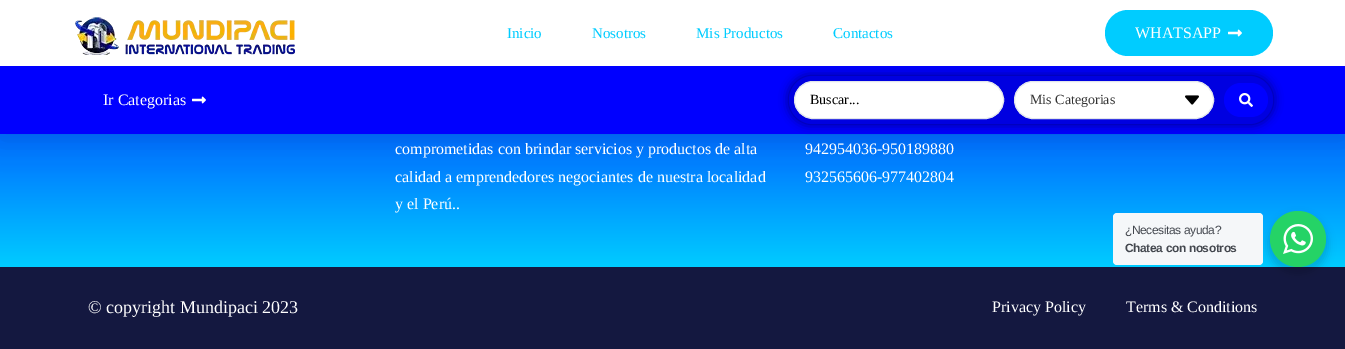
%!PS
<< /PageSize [1345 349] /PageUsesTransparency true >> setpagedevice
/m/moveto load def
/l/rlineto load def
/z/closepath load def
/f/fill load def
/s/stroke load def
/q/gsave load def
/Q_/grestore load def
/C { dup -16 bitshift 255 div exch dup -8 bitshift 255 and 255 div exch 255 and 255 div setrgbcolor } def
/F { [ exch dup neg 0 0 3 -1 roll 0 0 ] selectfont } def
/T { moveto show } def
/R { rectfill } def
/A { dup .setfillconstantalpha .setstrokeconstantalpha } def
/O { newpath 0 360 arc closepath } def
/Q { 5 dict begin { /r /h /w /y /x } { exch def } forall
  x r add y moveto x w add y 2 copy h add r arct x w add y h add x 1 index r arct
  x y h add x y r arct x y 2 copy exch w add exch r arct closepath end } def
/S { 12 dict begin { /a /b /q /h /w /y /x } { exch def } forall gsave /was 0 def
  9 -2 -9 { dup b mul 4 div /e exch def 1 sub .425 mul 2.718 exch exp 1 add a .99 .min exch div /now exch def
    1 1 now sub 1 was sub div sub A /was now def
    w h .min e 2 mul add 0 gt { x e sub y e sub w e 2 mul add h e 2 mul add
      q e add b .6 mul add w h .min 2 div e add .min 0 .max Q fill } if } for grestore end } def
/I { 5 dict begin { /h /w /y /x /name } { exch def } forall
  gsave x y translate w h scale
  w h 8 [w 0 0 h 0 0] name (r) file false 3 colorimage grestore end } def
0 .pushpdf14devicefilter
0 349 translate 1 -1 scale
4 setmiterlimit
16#FFFFFF C
0 0 1345 349 R
q 0 134 m 1345 0 l 0 133 l -1345 0 l z clip newpath
<< /ShadingType 2 /ColorSpace /DeviceRGB /Coords [673 -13 673 267] /Extend [true true] /Function << /FunctionType 2 /Domain [0 1] /C0 [0 0 1] /C1 [0 .8 1] /N 1 >> >> shfill Q_
16#000000 C
0 5 1345 134 0 15 .1 S
16#0000FF C
0 66 1345 68 R
16#000000 C
789 76 484 48 24 5 .5 S
16#FFFFFF C
0 0 1345 66 R
(1.rgb) 75 17 220 38 I
/LiberationSerif-Regular 15 F
16#00CCFF C
(Inicio) 507 38 T
(Nosotros) 592 38 T
(Mis Productos) 696 38 T
(Contactos) 833 38 T
1105 10 168 46 23 Q f
/LiberationSerif-Regular 16 F
16#FFFFFF C
(WHATSAPP) 1135 38 T
(2.rgb) 1228 29 14 8 I
(Ir Categorias) 103 105 T
(3.rgb) 192 96 14 8 I
16#0000E0 C
789 76 484 48 24 Q f
16#FFFFFF C
794.5 81.5 209 37 18.5 Q q f Q_
16#E1E5EB C
s
/LiberationSerif-Regular 14 F
16#000000 C
(Buscar...) 810 104 T
16#FFFFFF C
1014.5 81.5 199 37 18.5 Q q f Q_
16#E1E5EB C
s
16#333333 C
(Mis Categorias) 1030 104 T
(4.rgb) 1185 95 14 10 I
16#0000FF C
1224 83 44 34 17 Q f
(5.rgb) 1239 93 14 14 I
/LiberationSerif-Regular 16 F
16#FFFFFF C
(comprometidas con brindar servicios y productos de alta) 395 154 T
(calidad a emprendedores negociantes de nuestra localidad) 395 182 T
(y el Perú..) 395 209 T
(942954036-950189880) 805 154 T
(932565606-977402804) 805 182 T
16#141840 C
0 267 1345 82 R
/LiberationSerif-Regular 18 F
16#FFFFFF C
(© copyright Mundipaci 2023) 88 313 T
/LiberationSerif-Regular 16 F
(Privacy Policy) 992 312 T
(Terms & Conditions) 1126 312 T
16#000000 C
1268 215 60 60 30 4 .14 S
16#F5F7F9 C
1113 213 150 52 4 Q f
/LiberationSans-Regular 12 F
16#43474E C
1125 234 m -.4 0 (¿Necesitas ayuda?) ashow
/LiberationSans-Bold 12 F
1125 252 m -.4 0 (Chatea con nosotros) ashow
16#25D366 C
1298 239 28 O f
(6.rgb) 1283 224 30 30 I
.poppdf14devicefilter showpage
